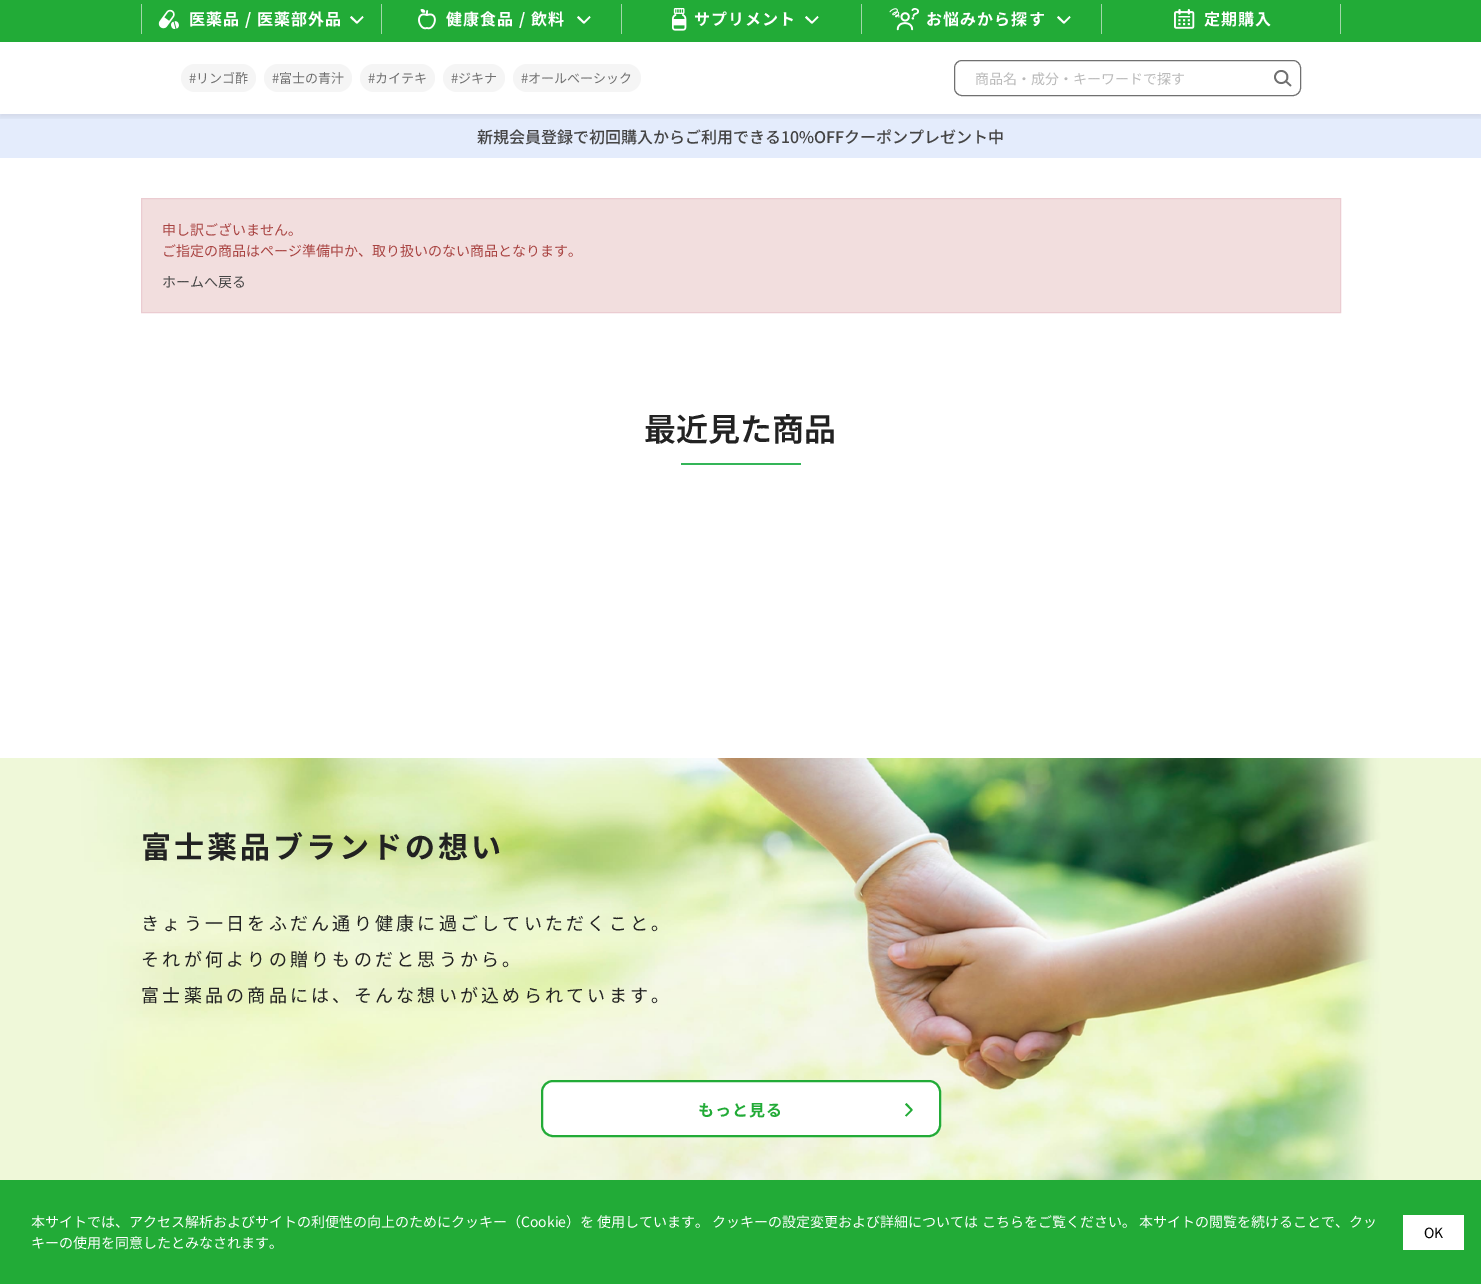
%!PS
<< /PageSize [1481 1284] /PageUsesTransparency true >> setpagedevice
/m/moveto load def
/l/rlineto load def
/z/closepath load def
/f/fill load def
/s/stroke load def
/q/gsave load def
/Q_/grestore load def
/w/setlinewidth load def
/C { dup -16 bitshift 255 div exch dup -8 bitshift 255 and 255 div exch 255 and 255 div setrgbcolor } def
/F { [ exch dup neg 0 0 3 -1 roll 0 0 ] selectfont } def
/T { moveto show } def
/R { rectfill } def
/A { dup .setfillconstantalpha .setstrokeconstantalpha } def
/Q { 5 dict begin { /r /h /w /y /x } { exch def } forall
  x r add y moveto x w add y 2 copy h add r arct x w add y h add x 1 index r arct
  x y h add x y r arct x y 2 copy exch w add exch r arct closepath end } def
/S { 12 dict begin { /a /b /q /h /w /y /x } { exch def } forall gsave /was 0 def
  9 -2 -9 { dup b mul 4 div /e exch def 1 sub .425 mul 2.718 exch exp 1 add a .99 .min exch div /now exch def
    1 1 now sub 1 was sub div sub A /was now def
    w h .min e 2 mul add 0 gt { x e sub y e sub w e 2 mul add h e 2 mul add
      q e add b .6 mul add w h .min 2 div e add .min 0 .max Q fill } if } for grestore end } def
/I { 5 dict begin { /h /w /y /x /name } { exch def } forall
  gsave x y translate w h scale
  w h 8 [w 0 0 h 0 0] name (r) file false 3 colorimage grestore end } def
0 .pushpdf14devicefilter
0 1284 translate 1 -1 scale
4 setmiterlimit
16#FFFFFF C
0 0 1481 1284 R
16#E4ECFC C
0 114 1481 44 R
q
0 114 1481 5 rectclip
16#000000 C
0 -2 1481 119 0 3 .08 S
Q_
16#22AB37 C
0 0 1481 42 R
16#A1D7A9 C
141 4 1 30 R
(1.rgb) 158 9 21 20 I
/NotoSansJP-Bold 16 F
16#FFFFFF C
189 25 m 1.1 0 (医薬品 / 医薬部外品) ashow
362.5 16 m 1 1.5 l -6 6 l -1.5 -1 l z f
351.5 16 m 6.5 6.5 l -1.5 1 l -6.5 -6 l z f
16#A1D7A9 C
381 4 1 30 R
(2.rgb) 418 9 18 21 I
16#FFFFFF C
446 25 m 1.1 0 (健康食品 / 飲料) ashow
589.5 16 m 1 1.5 l -6 6 l -1.5 -1 l z f
578.5 16 m 6.5 6.5 l -1.5 1 l -6.5 -6 l z f
16#A1D7A9 C
621 4 1 30 R
(3.rgb) 672 8 15 23 I
16#FFFFFF C
694 25 m 1.1 0 (サプリメント) ashow
817.5 16 m 1 1.5 l -6 6 l -1.5 -1 l z f
806.5 16 m 6.5 6.5 l -1.5 1 l -6.5 -6 l z f
16#A1D7A9 C
861 4 1 30 R
(4.rgb) 889 8 30 23 I
16#FFFFFF C
926 25 m 1.1 0 (お悩みから探す) ashow
1069.5 16 m 1 1.5 l -6 6 l -1.5 -1 l z f
1058.5 16 m 6.5 6.5 l -1.5 1 l -6.5 -6 l z f
16#A1D7A9 C
1101 4 1 30 R
(5.rgb) 1174 9 21 20 I
16#FFFFFF C
1204 25 m 1.1 0 (定期購入) ashow
16#A1D7A9 C
1340 4 1 30 R
16#F5F5F5 C
181 64 75 28 14 Q f
/NotoSansJP-Regular 13 F
16#707070 C
(#リンゴ酢) 189 83 T
16#F5F5F5 C
264 64 88 28 14 Q f
16#707070 C
(#富士の青汁) 272 83 T
16#F5F5F5 C
360 64 75 28 14 Q f
16#707070 C
(#カイテキ) 368 83 T
16#F5F5F5 C
443 64 62 28 14 Q f
16#707070 C
(#ジキナ) 451 83 T
16#F5F5F5 C
513 64 128 28 14 Q f
16#707070 C
(#オールベーシック) 521 83 T
954.5 60.5 346 35 7.5 Q s
/NotoSansJP-Regular 14 F
16#BABABA C
(商品名・成分・キーワードで探す) 975 84 T
(6.rgb) 1274 70 18 17 I
/NotoSansJP-Medium 16 F
16#444444 C
(新規会員登録で初回購入からご利用できる10%OFFクーポンプレゼント中) 477 143 T
16#F2DEDE C
141.5 198.5 m 1199 0 l 0 114 l -1199 0 l z q f Q_
16#EBCCD1 C
s
/NotoSansJP-Regular 14 F
16#A94442 C
(申し訳ございません。) 162 235 T
(ご指定の商品はページ準備中か、取り扱いのない商品となります。) 162 256 T
16#444444 C
(ホームへ戻る) 162 287 T
/NotoSansJP-SemiBold 32 F
16#222222 C
(最近見た商品) 644 441 T
16#34B558 C
681 463 120 2 R
(7.rgb) 0 758 1481 422 I
/NotoSansJP-Bold 30 F
16#222222 C
141 858 m 3 0 (富士薬品ブランドの想い) ashow
/NotoSansJP-Regular 18 F
141 930 m 3.25 0 (きょう一日をふだん通り健康に過ごしていただくこと。) ashow
141 966 m 3.25 0 (それが何よりの贈りものだと思うから。) ashow
141 1002 m 3.25 0 (富士薬品の商品には、そんな想いが込められています。) ashow
16#FFFFFF C
542 1081 398 55 11 Q q f Q_
16#22AB37 C
2 w
s
/NotoSansJP-Bold 16 F
698 1116 m 1.1 0 (もっと見る) ashow
905 1104.5 m 1.5 -1.5 l 6 6.5 l -1 1.5 l z f
905 1115.5 m 6.5 -6.5 l 1 1.5 l -6 6 l z f
0 1180 1481 104 R
/NotoSansJP-Regular 14 F
16#FFFFFF C
(本サイトでは、アクセス解析およびサイトの利便性の向上のためにクッキー（Cookie）を 使用しています。 クッキーの設定変更および詳細については こちらをご覧ください。 本サイトの閲覧を続けることで、クッ) 31 1227 T
(キーの使用を同意したとみなされます。) 31 1248 T
1403 1215 61 35 R
16#000000 C
(OK) 1424 1238 T
.poppdf14devicefilter showpage
